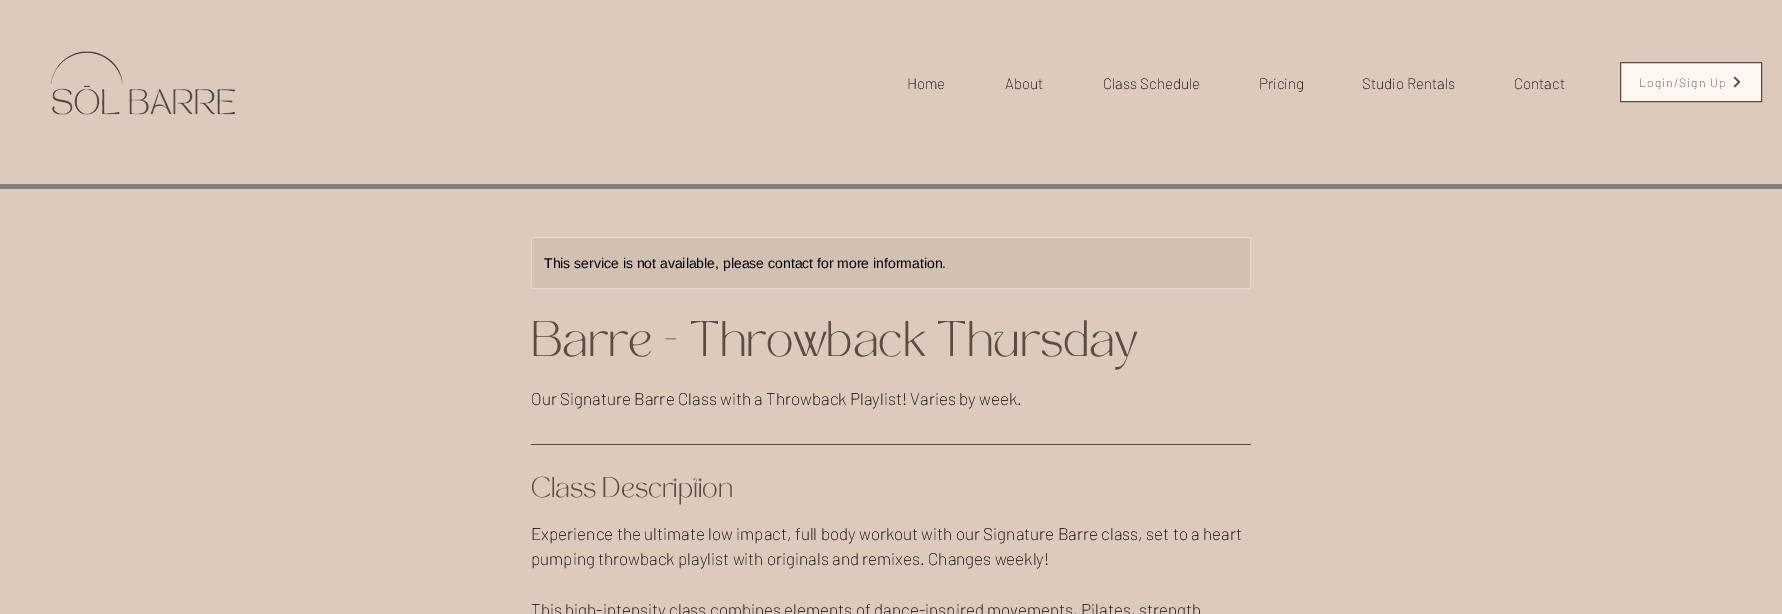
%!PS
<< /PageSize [1782 614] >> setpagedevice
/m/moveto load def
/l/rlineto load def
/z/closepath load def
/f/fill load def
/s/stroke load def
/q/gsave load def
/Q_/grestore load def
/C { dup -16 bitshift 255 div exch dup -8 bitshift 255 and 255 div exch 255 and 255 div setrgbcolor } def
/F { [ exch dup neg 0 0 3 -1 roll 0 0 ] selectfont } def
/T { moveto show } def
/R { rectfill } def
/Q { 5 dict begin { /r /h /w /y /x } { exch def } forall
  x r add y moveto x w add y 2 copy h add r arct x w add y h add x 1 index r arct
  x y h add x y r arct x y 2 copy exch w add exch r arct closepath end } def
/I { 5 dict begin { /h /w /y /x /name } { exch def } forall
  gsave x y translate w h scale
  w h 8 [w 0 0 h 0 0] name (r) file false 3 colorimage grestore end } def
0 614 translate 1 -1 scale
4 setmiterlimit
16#DDCABC C
0 0 1782 614 R
(1.rgb) 50 51 186 64 I
/Barlow-ExtraLight 15 F
16#000000 C
(Home) 907 89 T
(About) 1005 89 T
(Class Schedule) 1103 89 T
(Pricing) 1259 89 T
(Studio Rentals) 1362 89 T
(Contact) 1514 89 T
16#FFF8F1 C
1620.5 62.5 m 141 0 l 0 39 l -141 0 l z q f Q_
16#5B4D43 C
s
q
1639 75 88 14 rectclip
/Barlow-ExtraLight 12 F
1639 87 m 1.25 0 (Login/Sign Up) ashow
Q_
(2.rgb) 1733 76 8 12 I
16#808080 C
0 184 1782 5 R
16#D2C0B3 C
531.5 237.5 719 51 1.5 Q q f Q_
16#E4D9D1 C
s
/LiberationSans-Regular 14 F
16#000000 C
(This service is not available, please contact for more information.) 544 268 T
/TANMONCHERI-Regular 35 F
16#5B4D43 C
(Barre - Throwback Thursday) 531 356 T
/Barlow-ExtraLight 17 F
16#000000 C
(Our Signature Barre Class with a Throwback Playlist! Varies by week.) 531 405 T
16#5B4D43 C
531 444 720 1 R
/TANMONCHERI-Regular 20 F
(Class Description) 531 497 T
/Barlow-ExtraLight 17 F
16#000000 C
(Experience the ultimate low impact, full body workout with our Signature Barre class, set to a heart) 531 540 T
(pumping throwback playlist with originals and remixes. Changes weekly!) 531 565 T
(This high-intensity class combines elements of dance-inspired movements, Pilates, strength) 531 616 T
showpage
